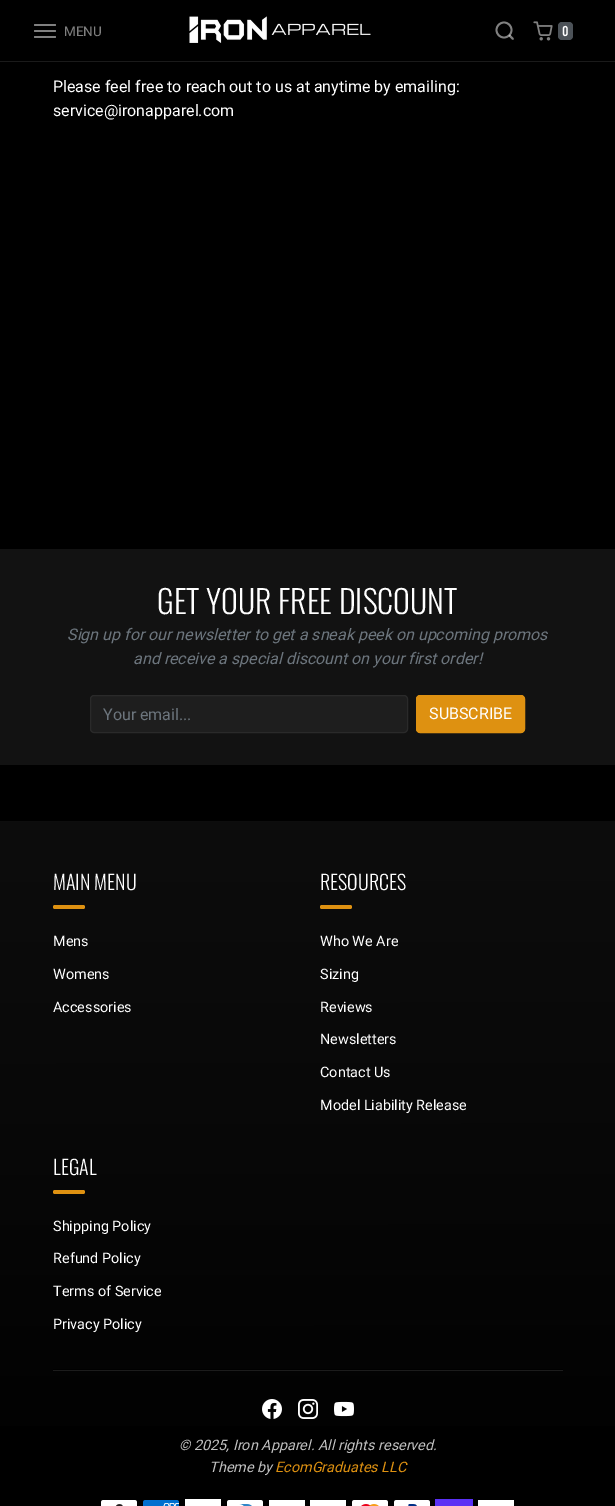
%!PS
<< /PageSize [615 1506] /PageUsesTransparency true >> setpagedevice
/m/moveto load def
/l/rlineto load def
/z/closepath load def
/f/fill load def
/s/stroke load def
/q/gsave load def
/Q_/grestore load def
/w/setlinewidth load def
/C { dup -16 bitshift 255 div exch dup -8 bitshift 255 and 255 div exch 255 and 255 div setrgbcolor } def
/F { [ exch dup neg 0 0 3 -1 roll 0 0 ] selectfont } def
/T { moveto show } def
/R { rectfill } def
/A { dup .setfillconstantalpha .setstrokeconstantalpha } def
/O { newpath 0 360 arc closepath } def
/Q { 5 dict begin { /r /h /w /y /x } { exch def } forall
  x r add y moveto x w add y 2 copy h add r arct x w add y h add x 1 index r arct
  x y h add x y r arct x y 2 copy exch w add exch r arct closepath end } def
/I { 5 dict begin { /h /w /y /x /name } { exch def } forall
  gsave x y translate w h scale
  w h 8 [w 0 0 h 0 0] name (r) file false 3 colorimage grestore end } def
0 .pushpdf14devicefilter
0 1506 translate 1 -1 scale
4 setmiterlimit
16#000000 C
0 0 615 1506 R
16#1A1A1A C
0 61 615 1 R
16#808080 C
34 24 22 2 1 Q f
34 30 22 2 1 Q f
34 36 22 2 1 Q f
/Roboto-Regular 13.5 F
(MENU) 64 36 T
(1.rgb) 189 16 182 27 I
1.8 w
504 30 7.5 O s
0.5 A
16#FFFFFF C
1 setlinecap
1 setlinejoin
513 39 m -3.5 -3.5 l s
1 A
(2.rgb) 533 21 20 20 I
16#4C5258 C
558 22 15 18 4 Q f
/Oswald-Bold 12 F
16#FFFFFF C
(0) 562 36 T
/Roboto-Regular 16 F
(Please feel free to reach out to us at anytime by emailing:) 53 92 T
(service@ironapparel.com) 53 116 T
16#121212 C
0 549 615 216 R
/Oswald-Light 32 F
16#FFFFFF C
(GET YOUR FREE DISCOUNT) 157 614 T
/Roboto-Italic 16 F
16#6C757D C
(Sign up for our newsletter to get a sneak peek on upcoming promos) 67 640 T
(and receive a special discount on your first order!) 133 664 T
16#1E1E1E C
90.5 695.5 317 37 3.5 Q q f Q_
16#2A2A2A C
1 w
0 setlinecap
0 setlinejoin
s
/Roboto-Regular 16 F
16#6C757D C
(Your email...) 103 720 T
16#DE9111 C
416.5 695.5 108 37 3.5 Q q f Q_
s
16#FFFFFF C
(SUBSCRIBE) 429 719 T
q 0 821 m 615 0 l 0 605 l -615 0 l z clip newpath
<< /ShadingType 2 /ColorSpace /DeviceRGB /Coords [307 821 308 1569] /Extend [true true] /Function << /FunctionType 2 /Domain [0 1] /C0 [.051 .051 .051] /C1 [0 0 0] /N 1 >> >> shfill Q_
/Oswald-Light 20 F
(MAIN MENU) 53 890 T
16#DE9111 C
53 905 32 4 2 Q f
/Roboto-Regular 14.4 F
16#FFFFFF C
(Mens) 53 946 T
(Womens) 53 979 T
(Accessories) 53 1012 T
/Oswald-Light 20 F
(RESOURCES) 320 890 T
16#DE9111 C
320 905 32 4 2 Q f
/Roboto-Regular 14.4 F
16#FFFFFF C
(Who We Are) 320 946 T
(Sizing) 320 979 T
(Reviews) 320 1012 T
(Newsletters) 320 1044 T
(Contact Us) 320 1077 T
(Model Liability Release) 320 1110 T
/Oswald-Light 20 F
(LEGAL) 53 1175 T
16#DE9111 C
53 1190 32 4 2 Q f
/Roboto-Regular 14.4 F
16#FFFFFF C
(Shipping Policy) 53 1231 T
(Refund Policy) 53 1263 T
(Terms of Service) 53 1296 T
(Privacy Policy) 53 1329 T
16#000000 C
53 1369 510 1 R
16#1C1C1C C
53 1370 510 1 R
(3.rgb) 262 1399 20 20 I
(4.rgb) 298 1399 20 20 I
(5.rgb) 334 1401 20 16 I
/Roboto-Italic 14.4 F
16#C0C0C0 C
(© 2025, Iron Apparel. All rights reserved.) 179 1450 T
(Theme by) 209 1472 T
16#DE9111 C
(EcomGraduates LLC) 275 1472 T
(6.rgb) 101 1500 36 6 I
(7.rgb) 143 1500 36 6 I
16#FFFFFF C
185 1499 36 7 R
(8.rgb) 227 1500 36 6 I
269 1500 36 6 R
310 1500 36 6 R
(9.rgb) 352 1500 36 6 I
(10.rgb) 394 1500 36 6 I
16#5A31F4 C
435 1499 38 7 R
16#FFFFFF C
478 1500 36 6 R
.poppdf14devicefilter showpage
